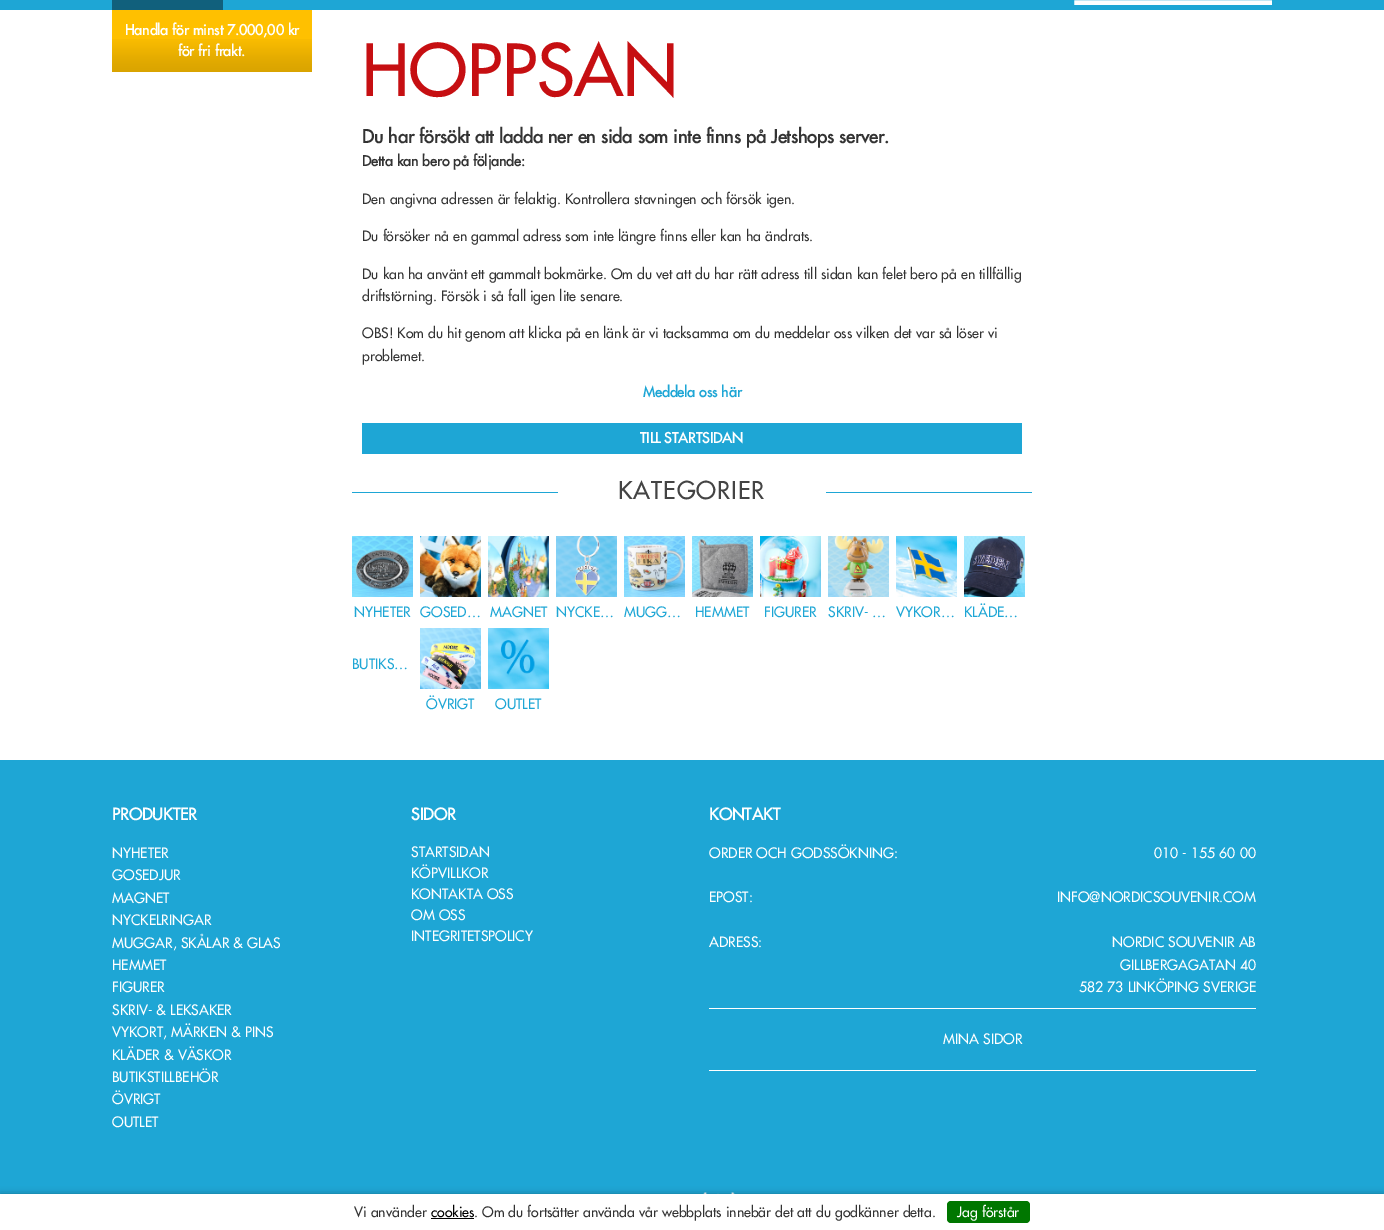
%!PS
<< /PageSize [1384 1230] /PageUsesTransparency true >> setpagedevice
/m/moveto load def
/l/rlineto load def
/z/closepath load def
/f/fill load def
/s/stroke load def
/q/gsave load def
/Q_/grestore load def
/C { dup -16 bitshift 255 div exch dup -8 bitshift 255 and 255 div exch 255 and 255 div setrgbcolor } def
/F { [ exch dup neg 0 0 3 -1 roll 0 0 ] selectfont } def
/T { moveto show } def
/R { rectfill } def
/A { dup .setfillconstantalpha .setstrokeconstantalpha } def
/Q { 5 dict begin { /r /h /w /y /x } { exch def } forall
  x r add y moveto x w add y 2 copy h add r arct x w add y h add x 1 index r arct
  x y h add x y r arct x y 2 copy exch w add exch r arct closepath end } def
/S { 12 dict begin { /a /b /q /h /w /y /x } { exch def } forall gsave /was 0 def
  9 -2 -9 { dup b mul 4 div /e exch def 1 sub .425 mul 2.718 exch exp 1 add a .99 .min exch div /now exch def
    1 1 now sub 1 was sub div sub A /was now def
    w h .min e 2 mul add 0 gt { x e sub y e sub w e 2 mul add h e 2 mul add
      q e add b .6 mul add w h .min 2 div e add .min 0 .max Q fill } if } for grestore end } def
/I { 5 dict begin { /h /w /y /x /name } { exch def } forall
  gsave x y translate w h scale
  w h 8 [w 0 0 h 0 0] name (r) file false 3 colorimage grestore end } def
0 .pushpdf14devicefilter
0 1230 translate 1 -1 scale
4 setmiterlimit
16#FFFFFF C
0 0 1384 1230 R
16#1EA6D5 C
0 0 1384 10 R
16#11607C C
112 0 111 10 R
16#FFFFFF C
1073.5 -.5 m 199 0 l 0 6 l -199 0 l z q f Q_
16#1EA6D5 C
s
16#FFC000 C
112 10 200 62 R
(1.rgb) 112 39 200 33 I
/Futura-Bold 14 F
16#FFFFFF C
(Handla för minst 7.000,00 kr) 125 35 T
(för fri frakt.) 178 56 T
/Futura-Regular 70 F
16#C60F12 C
(HOPPSAN) 362 96 T
/Futura-Bold 18 F
16#333333 C
(Du har försökt att ladda ner en sida som inte finns på Jetshops server.) 362 143 T
/Futura-Bold 14 F
(Detta kan bero på följande:) 362 166 T
/Futura-Regular 14 F
(Den angivna adressen är felaktig. Kontrollera stavningen och försök igen.) 362 204 T
(Du försöker nå en gammal adress som inte längre finns eller kan ha ändrats.) 362 241 T
(Du kan ha använt ett gammalt bokmärke. Om du vet att du har rätt adress till sidan kan felet bero på en tillfällig) 362 279 T
(driftstörning. Försök i så fall igen lite senare.) 362 301 T
(OBS! Kom du hit genom att klicka på en länk är vi tacksamma om du meddelar oss vilken det var så löser vi) 362 338 T
(problemet.) 362 361 T
/Futura-Bold 14 F
16#1EA6D5 C
(Meddela oss här) 643 397 T
362 423 660 31 R
16#FFFFFF C
(TILL STARTSIDAN) 640 443 T
16#1EA6D5 C
352 492 206 1 R
/Futura-Regular 24 F
16#444444 C
618 499 m 1 0 (KATEGORIER) ashow
16#1EA6D5 C
826 492 206 1 R
(2.rgb) 352 536 61 61 I
/Futura-Regular 14 F
(NYHETER) 354 617 T
(3.rgb) 420 536 61 61 I
(GOSED…) 420 617 T
(4.rgb) 488 536 61 61 I
(MAGNET) 490 617 T
(5.rgb) 556 536 61 61 I
(NYCKE…) 556 617 T
(6.rgb) 624 536 61 61 I
(MUGG…) 624 617 T
(7.rgb) 692 536 61 61 I
(HEMMET) 695 617 T
(8.rgb) 760 536 61 61 I
(FIGURER) 764 617 T
(9.rgb) 828 536 61 61 I
(SKRIV- …) 828 617 T
(10.rgb) 896 536 61 61 I
(VYKOR…) 896 617 T
(11.rgb) 964 536 61 61 I
(KLÄDE…) 964 617 T
(BUTIKS…) 352 669 T
(12.rgb) 420 628 61 61 I
(ÖVRIGT) 426 709 T
(13.rgb) 488 628 61 61 I
(OUTLET) 495 709 T
0 760 1384 434 R
(14.rgb) 703 1192 32 2 I
/Futura-Bold 16 F
16#FFFFFF C
(PRODUKTER) 112 820 T
/Futura-Regular 14 F
(NYHETER) 112 858 T
(GOSEDJUR) 112 880 T
(MAGNET) 112 903 T
(NYCKELRINGAR) 112 925 T
(MUGGAR, SKÅLAR & GLAS) 112 948 T
(HEMMET) 112 970 T
(FIGURER) 112 992 T
(SKRIV- & LEKSAKER) 112 1015 T
(VYKORT, MÄRKEN & PINS) 112 1037 T
(KLÄDER & VÄSKOR) 112 1060 T
(BUTIKSTILLBEHÖR) 112 1082 T
(ÖVRIGT) 112 1104 T
(OUTLET) 112 1127 T
/Futura-Bold 16 F
(SIDOR) 411 820 T
/Futura-Regular 14 F
(STARTSIDAN) 411 857 T
(KÖPVILLKOR) 411 878 T
(KONTAKTA OSS) 411 899 T
(OM OSS) 411 920 T
(INTEGRITETSPOLICY) 411 941 T
/Futura-Bold 16 F
(KONTAKT) 709 820 T
/Futura-Regular 14 F
(ORDER OCH GODSSÖKNING:) 709 858 T
(010 - 155 60 00) 1154 858 T
(EPOST:) 709 902 T
(INFO@NORDICSOUVENIR.COM) 1057 902 T
(ADRESS:) 709 947 T
(NORDIC SOUVENIR AB) 1112 947 T
(GILLBERGAGATAN 40) 1120 970 T
(582 73 LINKÖPING SVERIGE) 1079 992 T
709 1008 547 1 R
709 1070 547 1 R
(MINA SIDOR) 943 1044 T
16#000000 C
0 1194 1384 36 0 3.5 .3 S
16#FFFFFF C
0 1194 1384 36 R
16#333333 C
(Vi använder) 354 1217 T
16#000000 C
(cookies) 431 1217 T
431 1218 43 1 R
16#333333 C
(. Om du fortsätter använda vår webbplats innebär det att du godkänner detta.) 474 1217 T
16#007700 C
947 1201 83 22 4 Q f
16#FFFFFF C
(Jag förstår) 957 1217 T
.poppdf14devicefilter showpage
